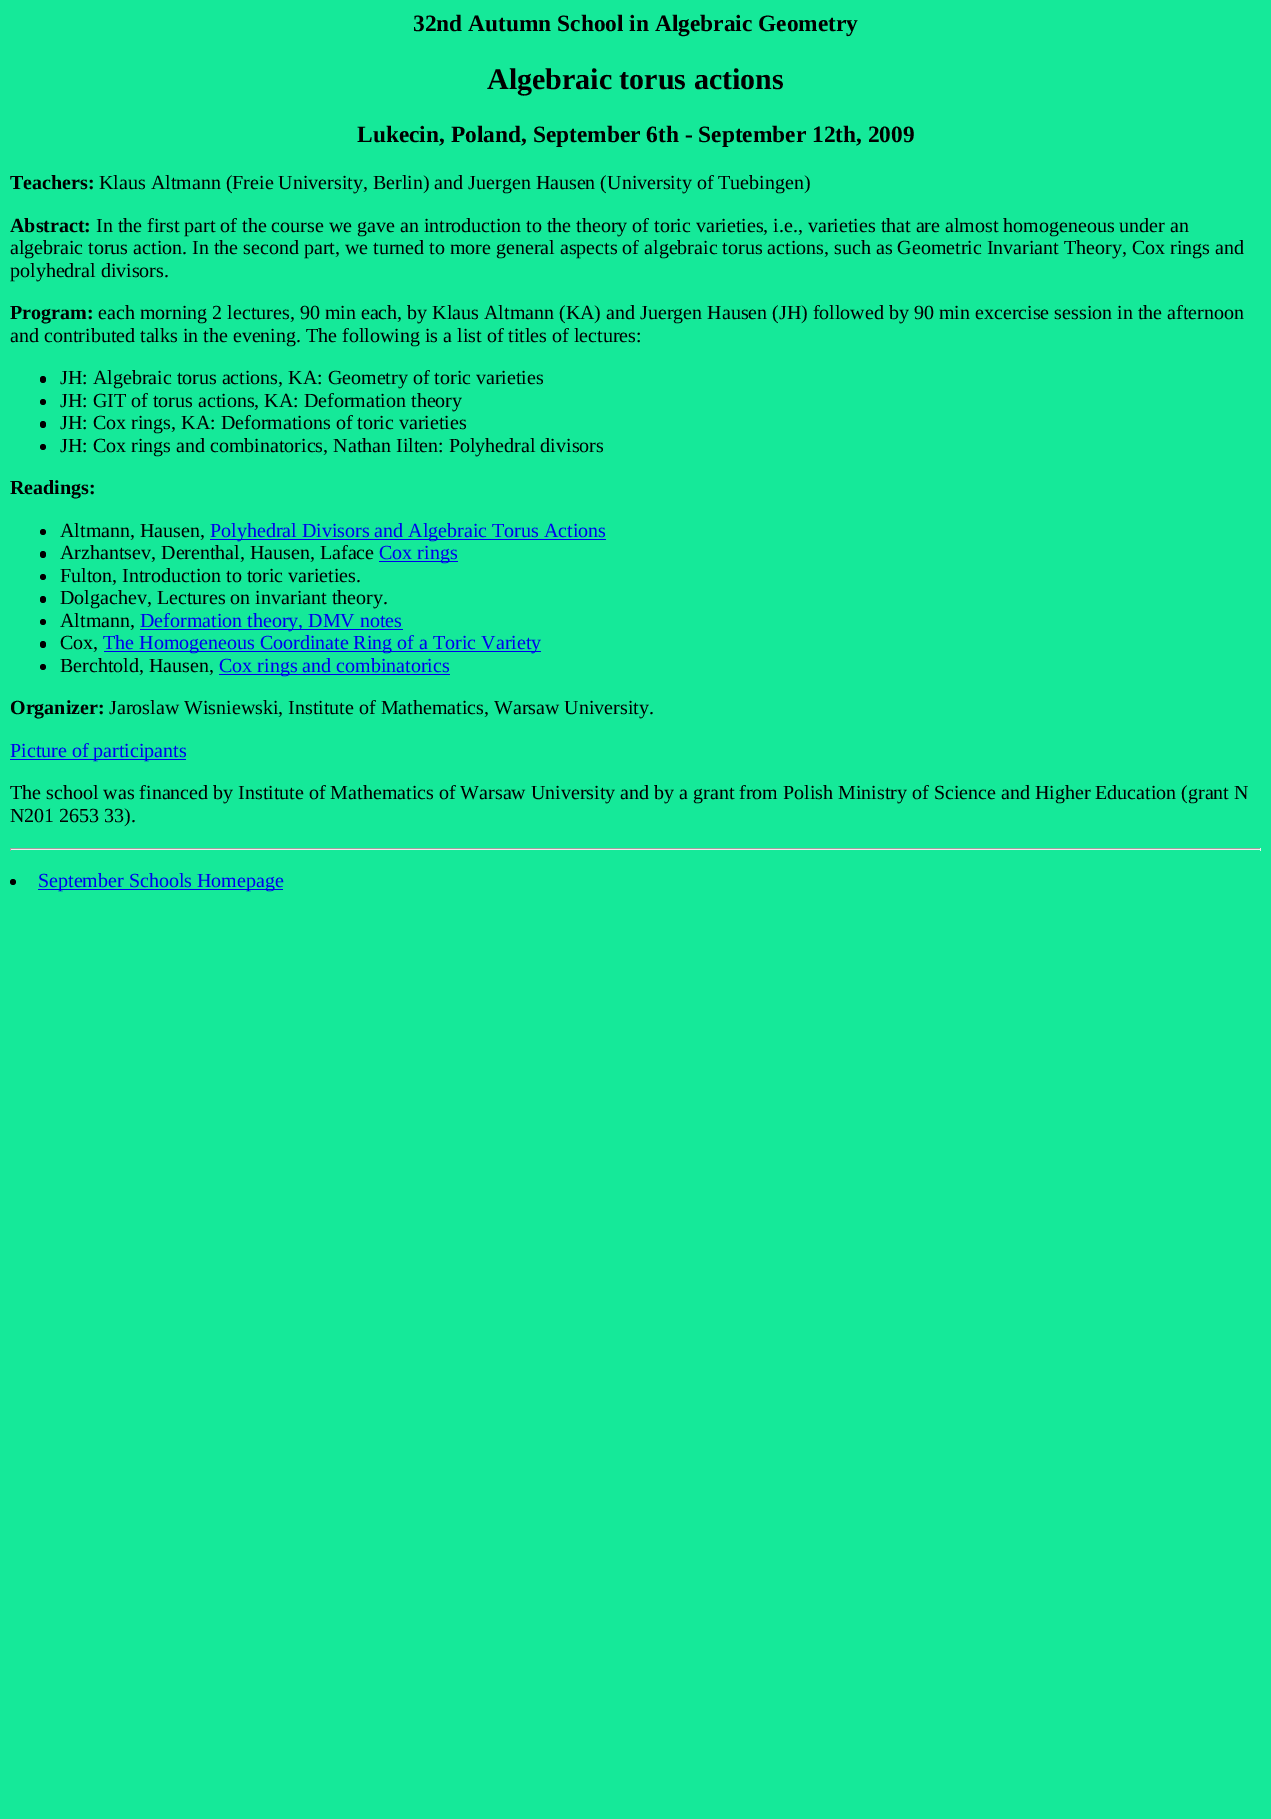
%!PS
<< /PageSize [1271 1819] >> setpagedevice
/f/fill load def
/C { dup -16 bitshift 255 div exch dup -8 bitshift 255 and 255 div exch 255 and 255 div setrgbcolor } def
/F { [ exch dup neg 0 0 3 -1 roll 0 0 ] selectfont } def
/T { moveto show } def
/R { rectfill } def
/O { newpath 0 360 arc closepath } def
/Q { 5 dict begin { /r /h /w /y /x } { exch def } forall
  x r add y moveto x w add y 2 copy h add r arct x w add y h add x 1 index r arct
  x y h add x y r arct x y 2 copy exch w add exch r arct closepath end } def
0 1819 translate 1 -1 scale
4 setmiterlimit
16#15E999 C
0 0 1271 1819 R
/LiberationSerif-Bold 23.4 F
16#000000 C
(32nd Autumn School in Algebraic Geometry) 413 31 T
/LiberationSerif-Bold 30 F
(Algebraic torus actions) 487 89 T
/LiberationSerif-Bold 23.4 F
(Lukecin, Poland, September 6th - September 12th, 2009) 357 142 T
/LiberationSerif-Bold 20 F
(Teachers:) 10 189 T
/LiberationSerif-Regular 20 F
(Klaus Altmann \(Freie University, Berlin\) and Juergen Hausen \(University of Tuebingen\)) 99 189 T
/LiberationSerif-Bold 20 F
(Abstract:) 10 232 T
/LiberationSerif-Regular 20 F
(In the first part of the course we gave an introduction to the theory of toric varieties, i.e., varieties that are almost homogeneous under an) 96 232 T
(algebraic torus action. In the second part, we turned to more general aspects of algebraic torus actions, such as Geometric Invariant Theory, Cox rings and) 10 254 T
(polyhedral divisors.) 10 277 T
/LiberationSerif-Bold 20 F
(Program:) 10 319 T
/LiberationSerif-Regular 20 F
(each morning 2 lectures, 90 min each, by Klaus Altmann \(KA\) and Juergen Hausen \(JH\) followed by 90 min excercise session in the afternoon) 98 319 T
(and contributed talks in the evening. The following is a list of titles of lectures:) 10 342 T
40 376 6 7 3 Q f
(JH: Algebraic torus actions, KA: Geometry of toric varieties) 60 384 T
43 402 3 O f
(JH: GIT of torus actions, KA: Deformation theory) 60 407 T
40 421 6 7 3 Q f
(JH: Cox rings, KA: Deformations of toric varieties) 60 429 T
43 447 3 O f
(JH: Cox rings and combinatorics, Nathan Iilten: Polyhedral divisors) 60 452 T
/LiberationSerif-Bold 20 F
(Readings:) 10 494 T
43 532 3 O f
/LiberationSerif-Regular 20 F
(Altmann, Hausen,) 60 537 T
16#0000EE C
210 539 396 1 R
(Polyhedral Divisors and Algebraic Torus Actions) 210 537 T
16#000000 C
40 551 6 7 3 Q f
(Arzhantsev, Derenthal, Hausen, Laface) 60 559 T
16#0000EE C
379 561 79 1 R
(Cox rings) 379 559 T
16#000000 C
43 577 3 O f
(Fulton, Introduction to toric varieties.) 60 582 T
40 596 6 7 3 Q f
(Dolgachev, Lectures on invariant theory.) 60 604 T
43 622 3 O f
(Altmann,) 60 627 T
16#0000EE C
140 629 263 1 R
(Deformation theory, DMV notes) 140 627 T
16#000000 C
40 641 6 7 3 Q f
(Cox,) 60 649 T
16#0000EE C
104 651 437 1 R
(The Homogeneous Coordinate Ring of a Toric Variety) 103 649 T
16#000000 C
43 667 3 O f
(Berchtold, Hausen,) 60 672 T
16#0000EE C
219 674 231 1 R
(Cox rings and combinatorics) 219 672 T
/LiberationSerif-Bold 20 F
16#000000 C
(Organizer:) 10 714 T
/LiberationSerif-Regular 20 F
(Jaroslaw Wisniewski, Institute of Mathematics, Warsaw University.) 109 714 T
16#0000EE C
10 759 176 1 R
(Picture of participants) 10 757 T
16#000000 C
(The school was financed by Institute of Mathematics of Warsaw University and by a grant from Polish Ministry of Science and Higher Education \(grant N) 10 799 T
(N201 2653 33\).) 10 822 T
16#9F9F9F C
10 848 1251 1 R
16#EEEEEE C
1260 848 1 3 R
10 849 1251 1 R
16#9F9F9F C
10 848 1 3 R
16#000000 C
13 882 3 O f
16#0000EE C
38 889 245 1 R
(September Schools Homepage) 38 887 T
showpage
